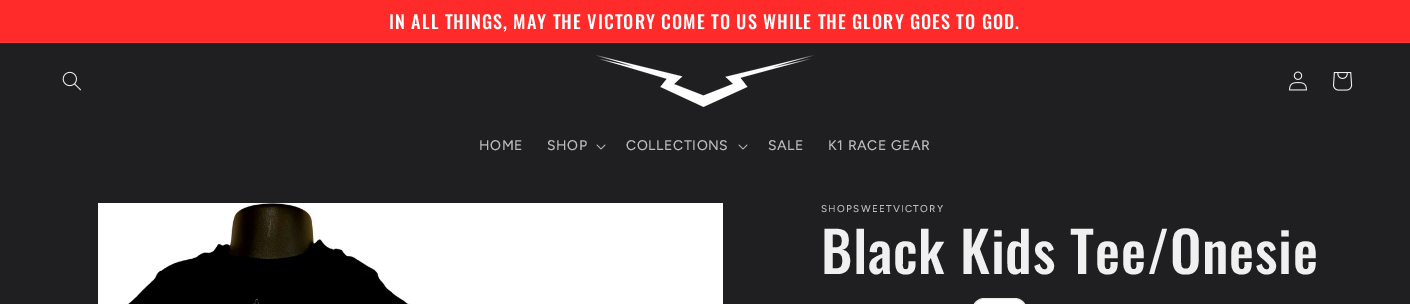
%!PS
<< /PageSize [1410 304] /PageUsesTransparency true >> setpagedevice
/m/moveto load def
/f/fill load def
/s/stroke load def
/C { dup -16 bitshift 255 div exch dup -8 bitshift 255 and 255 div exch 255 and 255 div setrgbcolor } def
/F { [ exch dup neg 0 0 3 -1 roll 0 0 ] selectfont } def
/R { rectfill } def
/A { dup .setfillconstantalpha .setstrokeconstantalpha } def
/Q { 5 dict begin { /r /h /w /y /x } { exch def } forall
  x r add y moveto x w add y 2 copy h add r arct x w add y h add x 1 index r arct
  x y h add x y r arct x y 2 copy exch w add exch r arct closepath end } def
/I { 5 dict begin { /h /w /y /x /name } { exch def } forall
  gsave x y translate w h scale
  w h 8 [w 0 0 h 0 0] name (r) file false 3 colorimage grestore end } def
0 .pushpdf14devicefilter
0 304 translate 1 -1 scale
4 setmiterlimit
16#1F1F21 C
0 0 1410 304 R
16#FF2B2B C
0 0 1410 42 R
16#FF3C3C C
0 42 1410 1 R
/Oswald-Medium 18.2 F
16#FFFFFF C
389 29 m 1 0 (IN ALL THINGS, MAY THE VICTORY COME TO US WHILE THE GLORY GOES TO GOD.) ashow
(1.rgb) 62 71 19 20 I
(2.rgb) 596 55 218 52 I
(3.rgb) 1289 71 18 20 I
(4.rgb) 1333 72 20 19 I
/Figtree-Medium 14 F
16#BCBCBC C
479 150 m .6 0 (HOME) ashow
547 150 m .6 0 (SHOP) ashow
(5.rgb) 596 144 10 6 I
626 150 m .6 0 (COLLECTIONS) ashow
(5.rgb) 738 144 10 6 I
768 150 m .6 0 (SALE) ashow
828 150 m .6 0 (K1 RACE GEAR) ashow
(6.rgb) 98 203 625 101 I
/Figtree-Medium 10 F
821 212 m 1.25 0 (SHOPSWEETVICTORY) ashow
/Oswald-Medium 56 F
16#F0F0F0 C
821 274 m .8 0 (Black Kids Tee/Onesie) ashow
16#FFFFFF C
972 298 55 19 12.5 Q f
0.1 A
16#1F1F21 C
972.5 298.5 54 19 12 Q s
.poppdf14devicefilter showpage
